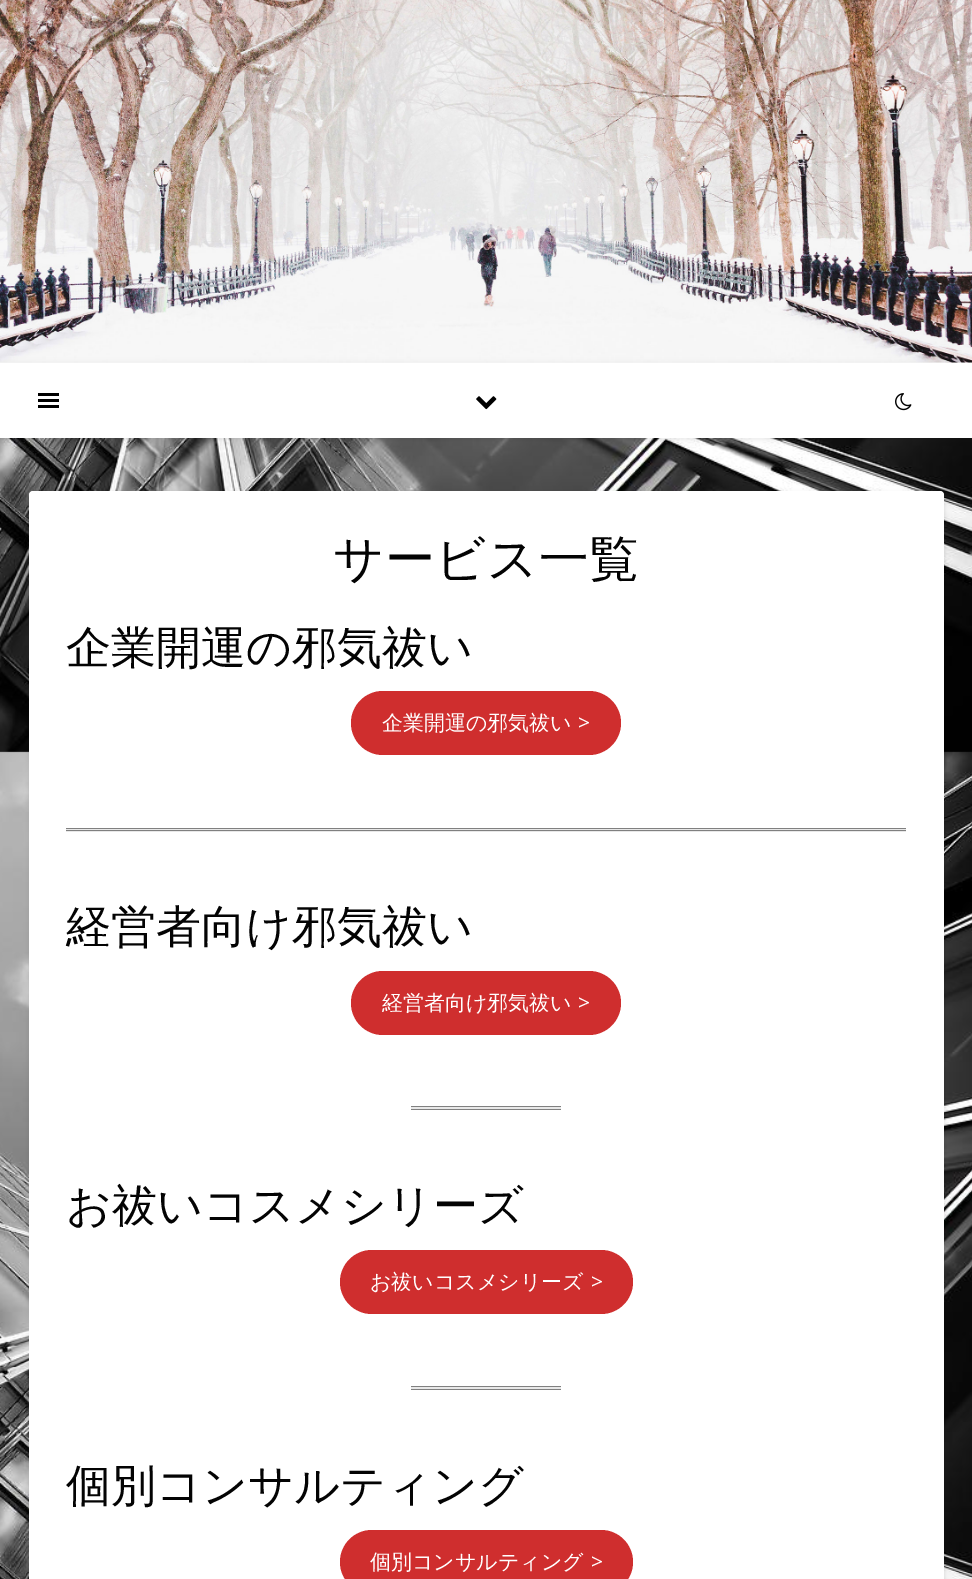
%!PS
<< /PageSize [972 1579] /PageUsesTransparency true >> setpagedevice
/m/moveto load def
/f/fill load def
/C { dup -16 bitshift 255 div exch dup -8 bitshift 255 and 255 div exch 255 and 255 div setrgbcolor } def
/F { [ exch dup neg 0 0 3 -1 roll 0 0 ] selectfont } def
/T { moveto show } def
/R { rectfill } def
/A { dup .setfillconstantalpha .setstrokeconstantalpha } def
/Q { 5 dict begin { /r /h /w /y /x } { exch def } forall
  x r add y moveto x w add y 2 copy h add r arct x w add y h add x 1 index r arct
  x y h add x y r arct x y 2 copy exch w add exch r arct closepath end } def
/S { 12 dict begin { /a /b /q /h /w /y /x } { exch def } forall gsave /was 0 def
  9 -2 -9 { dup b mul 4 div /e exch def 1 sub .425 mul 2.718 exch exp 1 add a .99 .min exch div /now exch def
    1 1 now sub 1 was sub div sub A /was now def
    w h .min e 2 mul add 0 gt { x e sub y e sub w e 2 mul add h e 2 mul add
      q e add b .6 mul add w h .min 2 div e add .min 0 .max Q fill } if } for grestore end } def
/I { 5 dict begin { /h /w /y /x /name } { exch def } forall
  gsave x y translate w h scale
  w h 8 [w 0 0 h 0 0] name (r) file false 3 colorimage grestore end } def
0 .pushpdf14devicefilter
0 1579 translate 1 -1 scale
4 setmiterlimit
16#FFFFFF C
0 0 972 1579 R
(1.rgb) 0 438 972 1141 I
(2.rgb) 0 0 972 363 I
16#000000 C
0 364 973 75 0 3 .1 S
16#FFFFFF C
0 363 972 75 R
16#000000 C
38 393 21 3 R
38 399 21 3 R
38 405 21 3 R
(3.rgb) 476 396 21 14 I
(4.rgb) 895 393 17 18 I
30 493 915 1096 4 2 .1 S
16#FFFFFF C
29 491 915 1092 4 Q f
/WenQuanYiZenHei-Medium 50 F
16#030303 C
333 576 m .5 0 (サービス一覧) ashow
/WenQuanYiZenHei-Medium 45 F
(企業開運の邪気祓い) 66 663 T
16#CF2E2E C
351 691 270 64 32 Q f
/WenQuanYiZenHei-Medium 21 F
16#FFFFFF C
(企業開運の邪気祓い) 382 730 T
/OpenSans-Regular 21 F
(>) 578 730 T
16#E8E8E8 C
66 829 840 3 R
16#808080 C
66 828 840 1 R
66 830 840 1 R
/WenQuanYiZenHei-Medium 45 F
16#030303 C
(経営者向け邪気祓い) 66 942 T
16#CF2E2E C
351 971 270 64 32 Q f
/WenQuanYiZenHei-Medium 21 F
16#FFFFFF C
(経営者向け邪気祓い) 382 1010 T
/OpenSans-Regular 21 F
(>) 578 1010 T
16#E8E8E8 C
411 1107 150 2 R
16#808080 C
411 1106 150 1 R
411 1109 150 1 R
/WenQuanYiZenHei-Medium 45 F
16#030303 C
(お祓いコスメシリーズ) 66 1221 T
16#CF2E2E C
340 1250 293 64 32 Q f
/WenQuanYiZenHei-Medium 21 F
16#FFFFFF C
(お祓いコスメシリーズ) 370 1289 T
/OpenSans-Regular 21 F
(>) 591 1289 T
16#E8E8E8 C
411 1387 150 2 R
16#808080 C
411 1386 150 1 R
411 1389 150 1 R
/WenQuanYiZenHei-Medium 45 F
16#030303 C
(個別コンサルティング) 66 1501 T
16#CF2E2E C
340 1530 293 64 32 Q f
/WenQuanYiZenHei-Medium 21 F
16#FFFFFF C
(個別コンサルティング) 370 1569 T
/OpenSans-Regular 21 F
(>) 591 1569 T
.poppdf14devicefilter showpage
